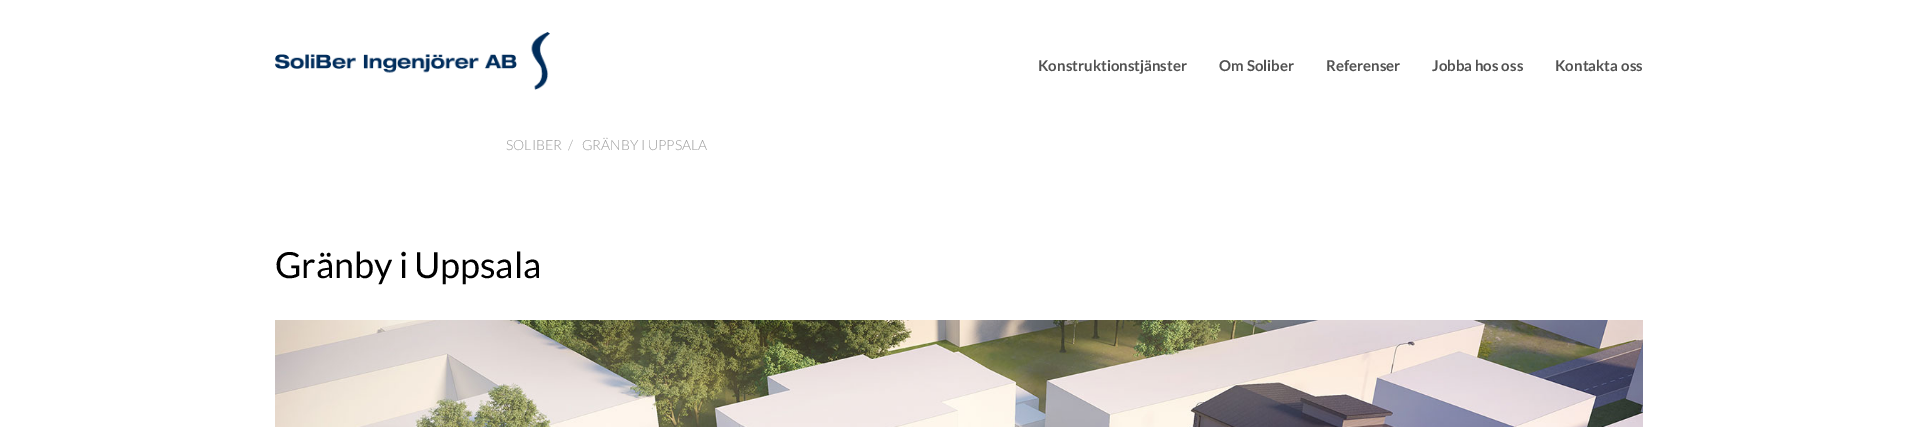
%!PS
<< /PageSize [1918 427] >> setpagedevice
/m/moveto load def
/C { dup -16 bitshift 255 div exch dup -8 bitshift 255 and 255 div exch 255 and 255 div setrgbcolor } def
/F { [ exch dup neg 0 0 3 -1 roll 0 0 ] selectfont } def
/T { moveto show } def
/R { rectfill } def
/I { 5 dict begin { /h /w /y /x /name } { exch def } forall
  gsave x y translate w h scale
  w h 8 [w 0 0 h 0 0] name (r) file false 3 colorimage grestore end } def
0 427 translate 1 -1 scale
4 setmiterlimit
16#FFFFFF C
0 0 1918 427 R
(1.rgb) 275 32 275 58 I
/Lato-Bold 15 F
16#525252 C
(Konstruktionstjänster) 1038 71 T
(Om Soliber) 1219 71 T
(Referenser) 1326 71 T
(Jobba hos oss) 1432 71 T
(Kontakta oss) 1555 71 T
/Lato-Light 14 F
16#9C9C9C C
(SOLIBER) 506 150 T
(/) 568 150 T
(GRÄNBY I UPPSALA) 582 150 T
/Lato-Regular 36 F
16#000000 C
275 278 m -1 0 32 (Gränby i Uppsala) widthshow
(2.rgb) 275 320 1368 107 I
showpage
